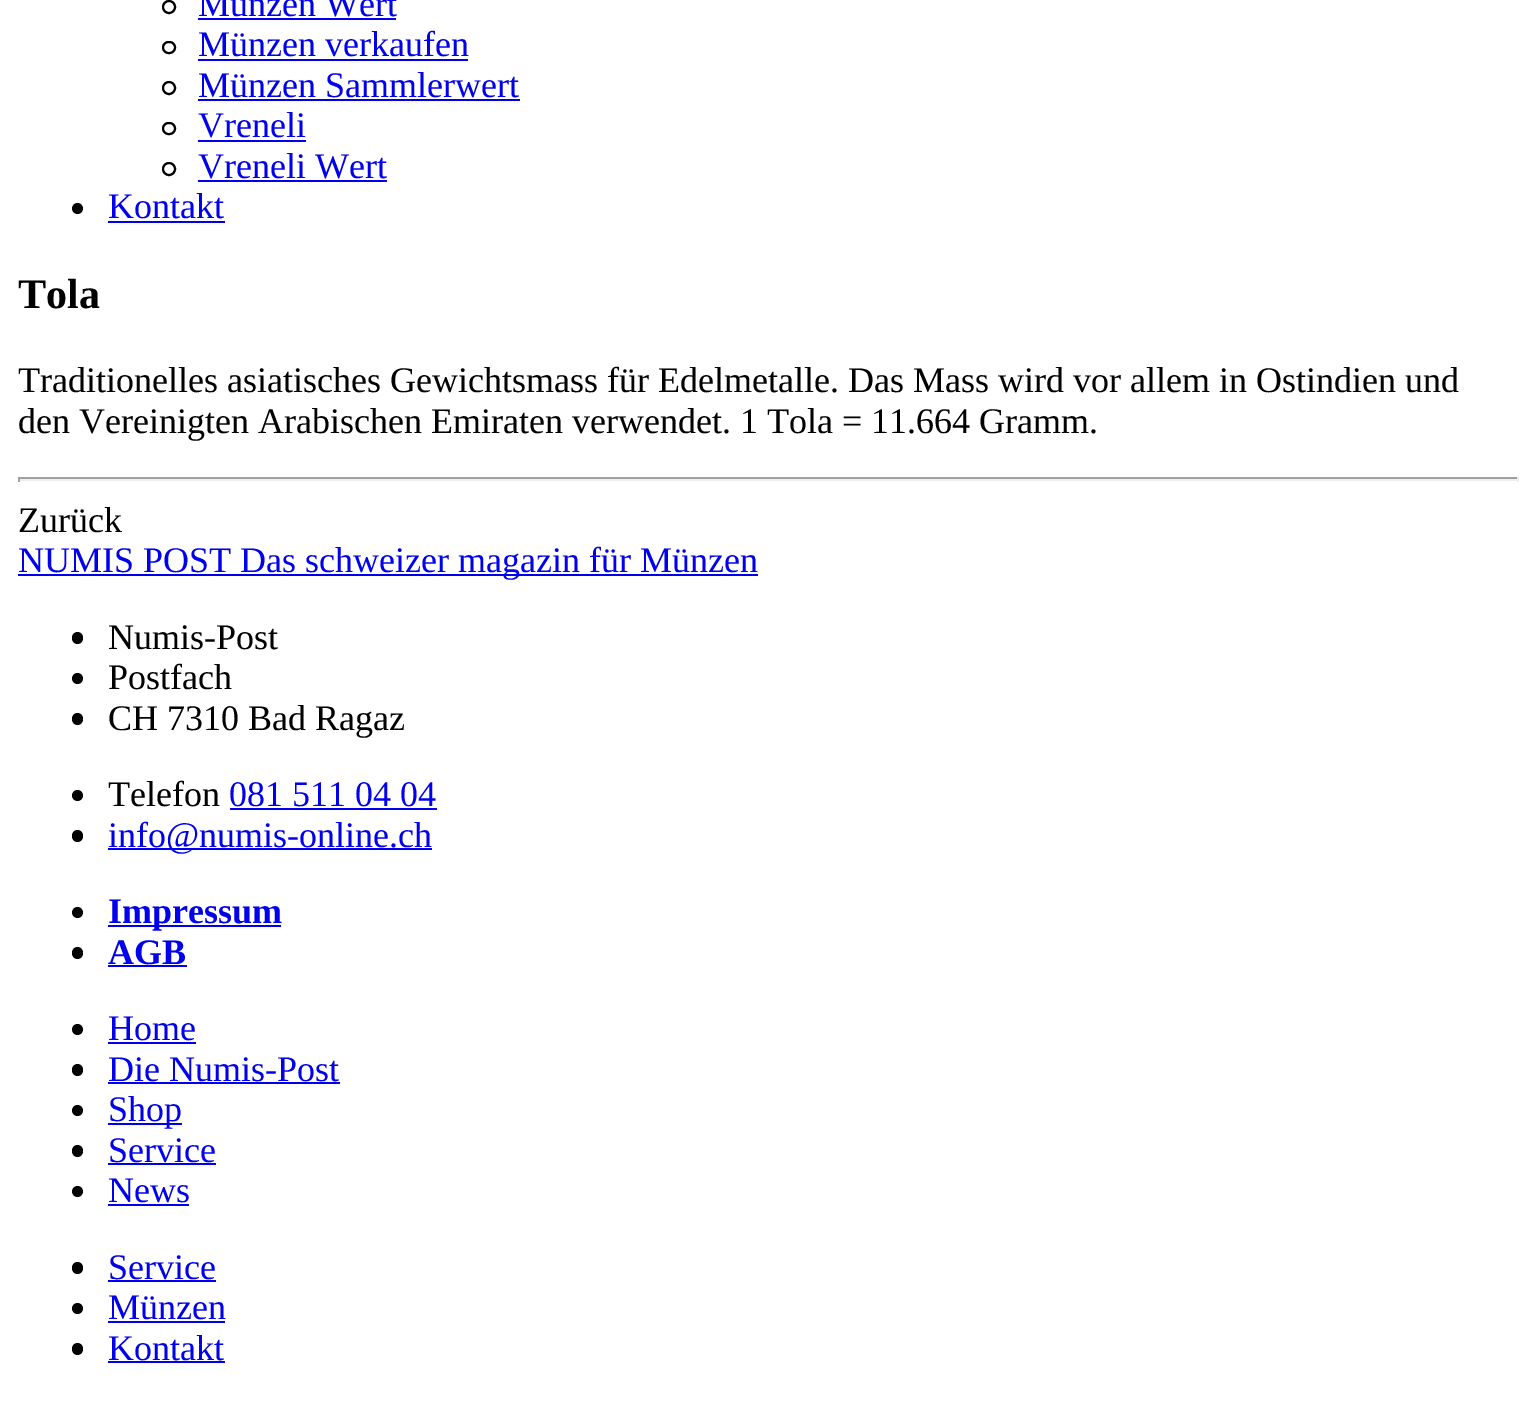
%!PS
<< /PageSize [1536 1403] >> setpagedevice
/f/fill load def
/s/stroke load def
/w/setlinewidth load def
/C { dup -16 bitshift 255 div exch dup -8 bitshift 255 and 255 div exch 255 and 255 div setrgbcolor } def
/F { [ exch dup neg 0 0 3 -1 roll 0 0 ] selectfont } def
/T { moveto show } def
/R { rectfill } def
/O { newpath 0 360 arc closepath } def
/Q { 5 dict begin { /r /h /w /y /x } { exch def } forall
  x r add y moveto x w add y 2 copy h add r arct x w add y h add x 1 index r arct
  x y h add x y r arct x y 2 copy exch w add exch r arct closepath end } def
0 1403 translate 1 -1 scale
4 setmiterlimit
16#FFFFFF C
0 0 1536 1403 R
16#000000 C
2 w
169 7 6 O s
/LiberationSerif-Regular 36 F
16#0000EE C
(Münzen Wert) 198 16 T
198 18 198 2 R
16#000000 C
163 42 12 11 5.5 Q s
16#0000EE C
(Münzen verkaufen) 198 56 T
198 59 270 2 R
16#000000 C
169 88 6 O s
16#0000EE C
(Münzen Sammlerwert) 198 97 T
198 99 322 2 R
16#000000 C
163 123 12 11 5.5 Q s
16#0000EE C
(Vreneli) 198 137 T
198 140 108 2 R
16#000000 C
169 169 6 O s
16#0000EE C
(Vreneli Wert) 198 178 T
198 180 189 2 R
16#000000 C
77.5 208.5 5.5 O f
16#0000EE C
(Kontakt) 108 218 T
108 221 117 2 R
/LiberationSerif-Bold 42 F
16#000000 C
(Tola) 18 308 T
/LiberationSerif-Regular 36 F
(Traditionelles asiatisches Gewichtsmass für Edelmetalle. Das Mass wird vor allem in Ostindien und) 18 392 T
(den Vereinigten Arabischen Emiraten verwendet. 1 Tola = 11.664 Gramm.) 18 433 T
16#9F9F9F C
18 477 1501 2 R
16#EEEEEE C
1517 477 2 5 R
18 479 1501 2 R
16#9F9F9F C
18 477 2 5 R
16#000000 C
(Zurück) 18 532 T
16#0000EE C
18 574 740 2 R
(NUMIS POST Das schweizer magazin für Münzen) 18 572 T
16#000000 C
72 632 11 12 5.5 Q f
(Numis-Post) 108 649 T
77.5 678.5 5.5 O f
(Postfach) 108 689 T
72 713 11 12 5.5 Q f
(CH 7310 Bad Ragaz) 108 730 T
77.5 795.5 5.5 O f
(Telefon) 108 806 T
16#0000EE C
(081 511 04 04) 229 806 T
230 808 207 2 R
16#000000 C
72 830 11 12 5.5 Q f
16#0000EE C
108 848 324 2 R
(info@numis-online.ch) 108 847 T
16#000000 C
77.5 912.5 5.5 O f
16#0000EE C
108 925 173 2 R
/LiberationSerif-Bold 36 F
(Impressum) 108 923 T
16#000000 C
72 947 11 12 5.5 Q f
16#0000EE C
(AGB) 108 964 T
108 965 79 2 R
16#000000 C
77.5 1029.5 5.5 O f
/LiberationSerif-Regular 36 F
16#0000EE C
(Home) 108 1040 T
108 1042 88 2 R
16#000000 C
72 1064 11 12 5.5 Q f
16#0000EE C
(Die Numis-Post) 108 1081 T
108 1082 232 2 R
16#000000 C
77.5 1110.5 5.5 O f
16#0000EE C
108 1123 74 2 R
(Shop) 108 1121 T
16#000000 C
72 1145 11 12 5.5 Q f
16#0000EE C
(Service) 108 1162 T
108 1163 108 2 R
16#000000 C
77.5 1191.5 5.5 O f
16#0000EE C
(News) 108 1202 T
108 1204 81 2 R
16#000000 C
72 1262 11 12 5.5 Q f
16#0000EE C
(Service) 108 1279 T
108 1280 108 2 R
16#000000 C
77.5 1308.5 5.5 O f
16#0000EE C
(Münzen) 108 1319 T
108 1321 117 2 R
16#000000 C
72 1343 11 12 5.5 Q f
16#0000EE C
(Kontakt) 108 1360 T
108 1361 117 2 R
showpage
